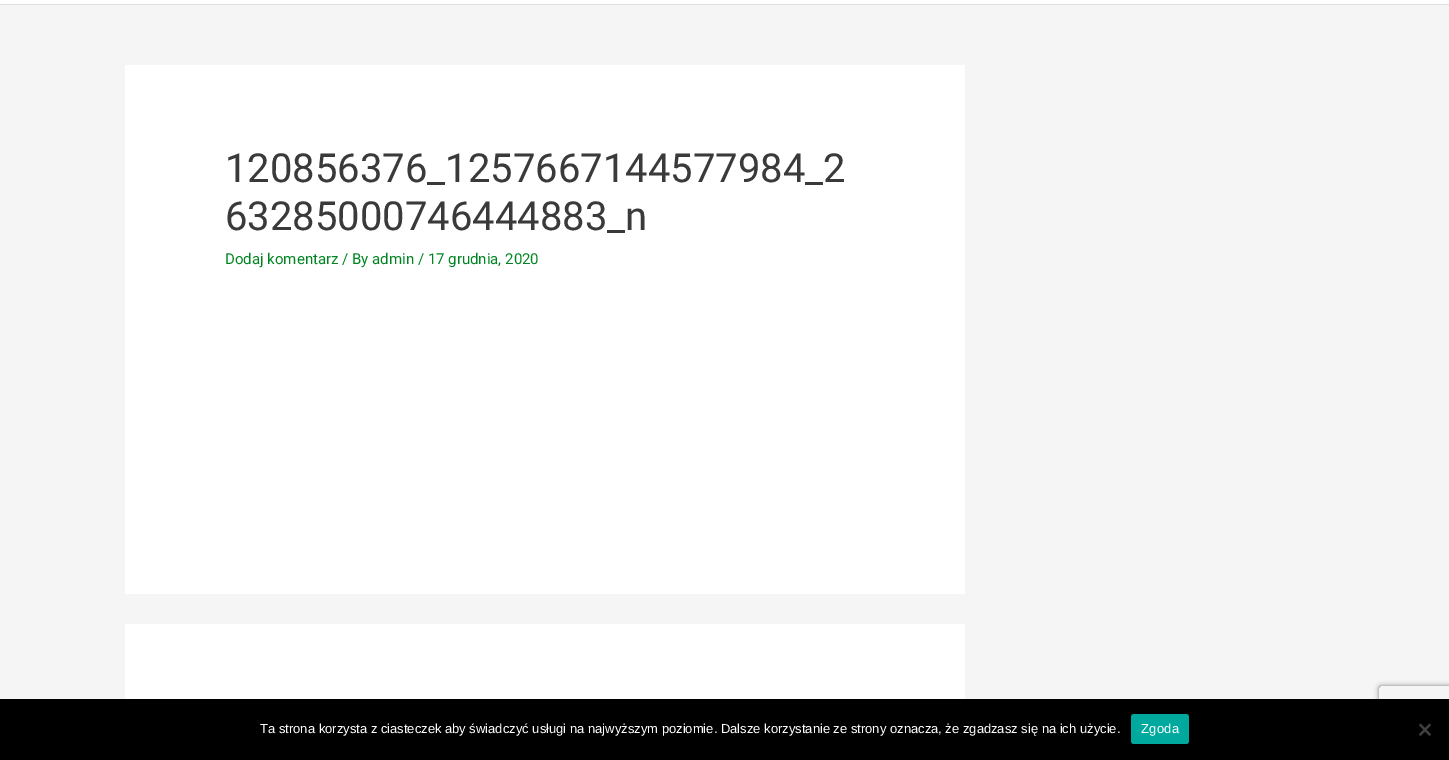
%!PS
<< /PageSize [1449 760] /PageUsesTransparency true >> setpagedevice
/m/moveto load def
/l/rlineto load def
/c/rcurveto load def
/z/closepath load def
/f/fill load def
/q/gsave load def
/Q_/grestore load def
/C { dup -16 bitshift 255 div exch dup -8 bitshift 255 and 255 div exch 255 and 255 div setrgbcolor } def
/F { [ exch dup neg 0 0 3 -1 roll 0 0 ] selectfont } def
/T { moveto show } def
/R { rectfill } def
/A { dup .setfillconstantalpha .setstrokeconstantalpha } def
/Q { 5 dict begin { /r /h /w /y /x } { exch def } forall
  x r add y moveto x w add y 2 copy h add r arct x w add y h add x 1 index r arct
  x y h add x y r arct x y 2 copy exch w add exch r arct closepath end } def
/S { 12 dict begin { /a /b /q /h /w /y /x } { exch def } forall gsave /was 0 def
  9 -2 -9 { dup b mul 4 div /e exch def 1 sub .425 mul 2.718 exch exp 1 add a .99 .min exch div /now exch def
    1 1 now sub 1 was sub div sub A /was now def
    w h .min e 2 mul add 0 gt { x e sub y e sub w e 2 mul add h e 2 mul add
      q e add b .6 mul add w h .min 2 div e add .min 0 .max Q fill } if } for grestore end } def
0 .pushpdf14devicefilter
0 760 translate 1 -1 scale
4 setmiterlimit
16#F5F5F5 C
0 0 1449 760 R
16#FFFFFF C
0 0 1449 4 R
16#DDDDDD C
0 4 1449 1 R
16#FFFFFF C
125 65 840 529 R
/Roboto-Regular 40 F
16#3A3A3A C
(120856376_1257667144577984_2) 225 182 T
(63285000746444883_n) 225 230 T
/Roboto-Regular 15 F
16#018522 C
(Dodaj komentarz / By admin / 17 grudnia, 2020) 225 264 T
16#FFFFFF C
125 624 840 75 R
q
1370 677 m 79 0 l 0 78 l -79 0 l z 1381 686 m 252 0 l 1 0 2 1 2 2 c 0 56 l 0 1 -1 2 -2 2 c -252 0 l -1 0 -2 -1 -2 -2 c 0 -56 l 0 -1 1 -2 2 -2 c z eoclip newpath
16#808080 C
1379 686 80 60 2 2.5 1 S
Q_
16#000000 C
0 699 1449 61 R
/LiberationSans-Regular 13 F
16#FFFFFF C
(Ta strona korzysta z ciasteczek aby świadczyć usługi na najwyższym poziomie. Dalsze korzystanie ze strony oznacza, że zgadzasz się na ich użycie.) 260 733 T
16#00A99D C
1131 714 58 30 3 Q f
16#FFFFFF C
1141 733 m .25 0 (Zgoda) ashow
16#404040 C
1429.5 723.5 m 1.5 1.5 l -10.5 11 l -1.5 -1.5 l z f
1419 725 m 1.5 -1.5 l 10.5 11 l -1.5 1.5 l z f
.poppdf14devicefilter showpage
